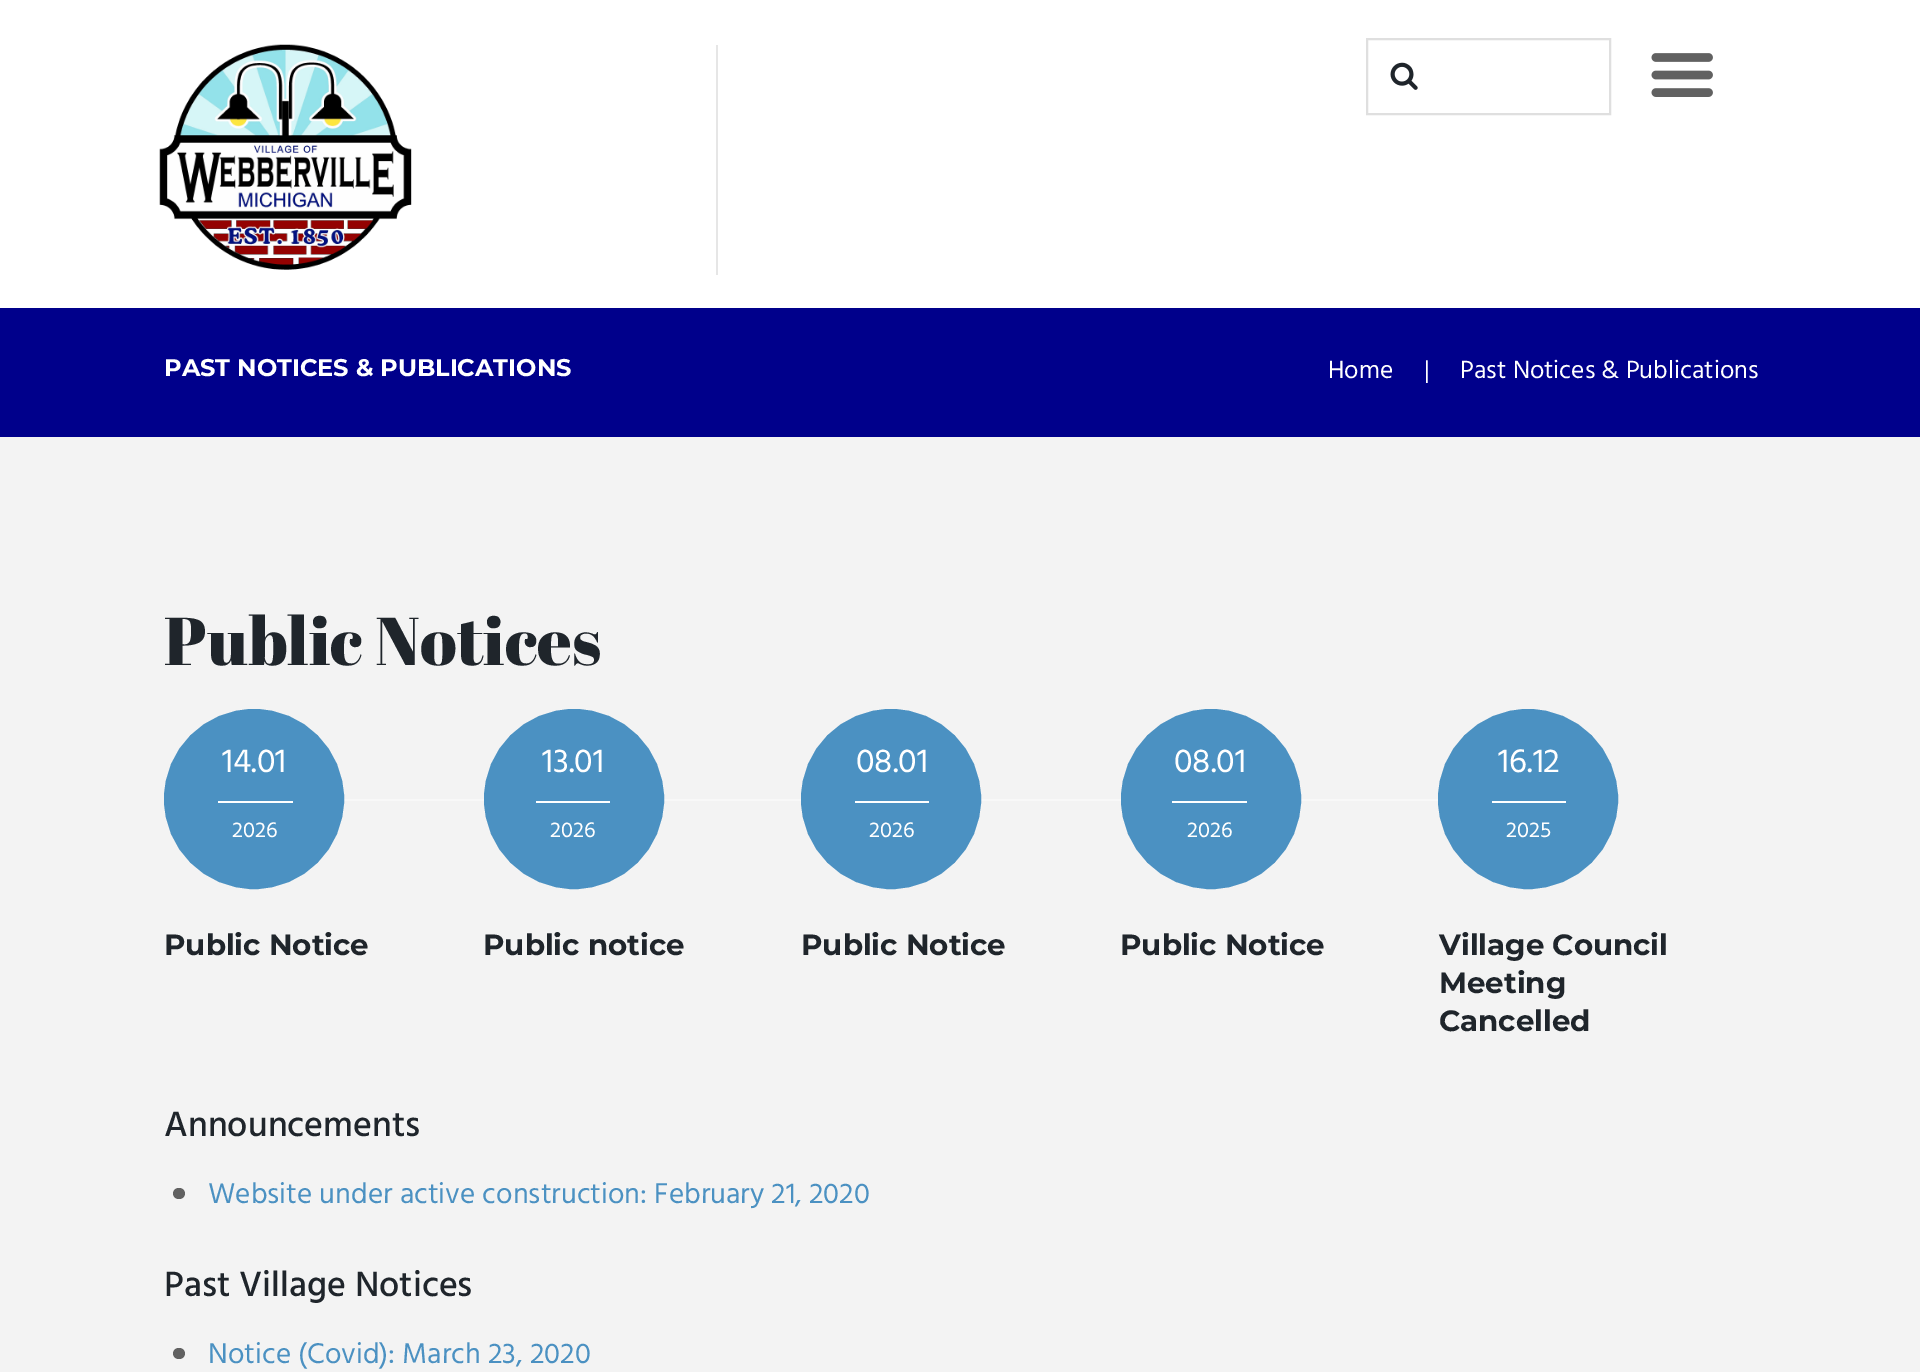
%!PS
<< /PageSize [1920 1372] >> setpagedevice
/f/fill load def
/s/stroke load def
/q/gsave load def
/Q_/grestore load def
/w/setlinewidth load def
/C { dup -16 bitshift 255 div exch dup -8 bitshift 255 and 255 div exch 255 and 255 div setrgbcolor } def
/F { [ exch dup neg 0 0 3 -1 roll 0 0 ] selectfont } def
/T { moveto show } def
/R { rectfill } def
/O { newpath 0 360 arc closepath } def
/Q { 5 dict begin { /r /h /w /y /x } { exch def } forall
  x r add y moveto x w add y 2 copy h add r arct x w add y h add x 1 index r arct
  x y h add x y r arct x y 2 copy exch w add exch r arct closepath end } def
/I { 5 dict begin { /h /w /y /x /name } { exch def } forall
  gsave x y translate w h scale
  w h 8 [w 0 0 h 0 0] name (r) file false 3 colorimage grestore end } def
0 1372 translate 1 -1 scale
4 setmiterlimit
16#F3F3F3 C
0 0 1920 1372 R
16#FFFFFF C
0 0 1920 308 R
(1.rgb) 159 44 253 226 I
16#E6E6E6 C
716 45 2 230 R
16#DFDFDF C
2 w
1367 39 243 75 rectstroke
(2.rgb) 1390 62 28 28 I
(3.rgb) 1651 53 62 44 I
16#00008B C
0 308 1920 129 R
/Montserrat-Bold 24.1 F
16#FFFFFF C
(PAST NOTICES & PUBLICATIONS) 164 376 T
/Hind-Regular 25.5 F
(Home) 1328 378 T
(|) 1424 378 T
(Past Notices & Publications) 1460 378 T
/AbrilFatface-Regular 67.5 F
16#1F252B C
(Public Notices) 164 665 T
16#F8F8F8 C
164 799 1274 2 R
16#4B91C2 C
254 799 89 O q f Q_
s
/Hind-Regular 34 F
16#FFFFFF C
(14.01) 222 772 T
218 801 75 2 R
/Hind-Regular 22 F
(2026) 232 837 T
/Montserrat-Bold 29.25 F
16#1F252B C
(Public Notice) 164 955 T
16#4B91C2 C
574 799 89 O q f Q_
s
/Hind-Regular 34 F
16#FFFFFF C
(13.01) 542 772 T
536 801 74 2 R
/Hind-Regular 22 F
(2026) 550 837 T
/Montserrat-Bold 29.25 F
16#1F252B C
(Public notice) 483 955 T
16#4B91C2 C
891 799 89 O q f Q_
s
/Hind-Regular 34 F
16#FFFFFF C
(08.01) 856 772 T
855 801 74 2 R
/Hind-Regular 22 F
(2026) 869 837 T
/Montserrat-Bold 29.25 F
16#1F252B C
(Public Notice) 801 955 T
16#4B91C2 C
1211 799 89 O q f Q_
s
/Hind-Regular 34 F
16#FFFFFF C
(08.01) 1174 772 T
1172 801 75 2 R
/Hind-Regular 22 F
(2026) 1187 837 T
/Montserrat-Bold 29.25 F
16#1F252B C
(Public Notice) 1120 955 T
16#4B91C2 C
1528 799 89 O q f Q_
s
/Hind-Regular 34 F
16#FFFFFF C
(16.12) 1498 772 T
1492 801 74 2 R
/Hind-Regular 22 F
(2025) 1506 837 T
/Montserrat-Bold 29.25 F
16#1F252B C
(Village Council) 1439 955 T
(Meeting) 1439 993 T
(Cancelled) 1439 1031 T
/Hind-Medium 36 F
(Announcements) 164 1136 T
16#616161 C
173 1188 12 11 5.5 Q f
/Hind-Regular 29.25 F
16#4B91C2 C
(Website under active construction: February 21, 2020) 208 1203 T
/Hind-Medium 36 F
16#1F252B C
(Past Village Notices) 164 1296 T
16#616161 C
173 1348 12 11 5.5 Q f
/Hind-Regular 29.25 F
16#4B91C2 C
(Notice \(Covid\): March 23, 2020) 208 1363 T
showpage
